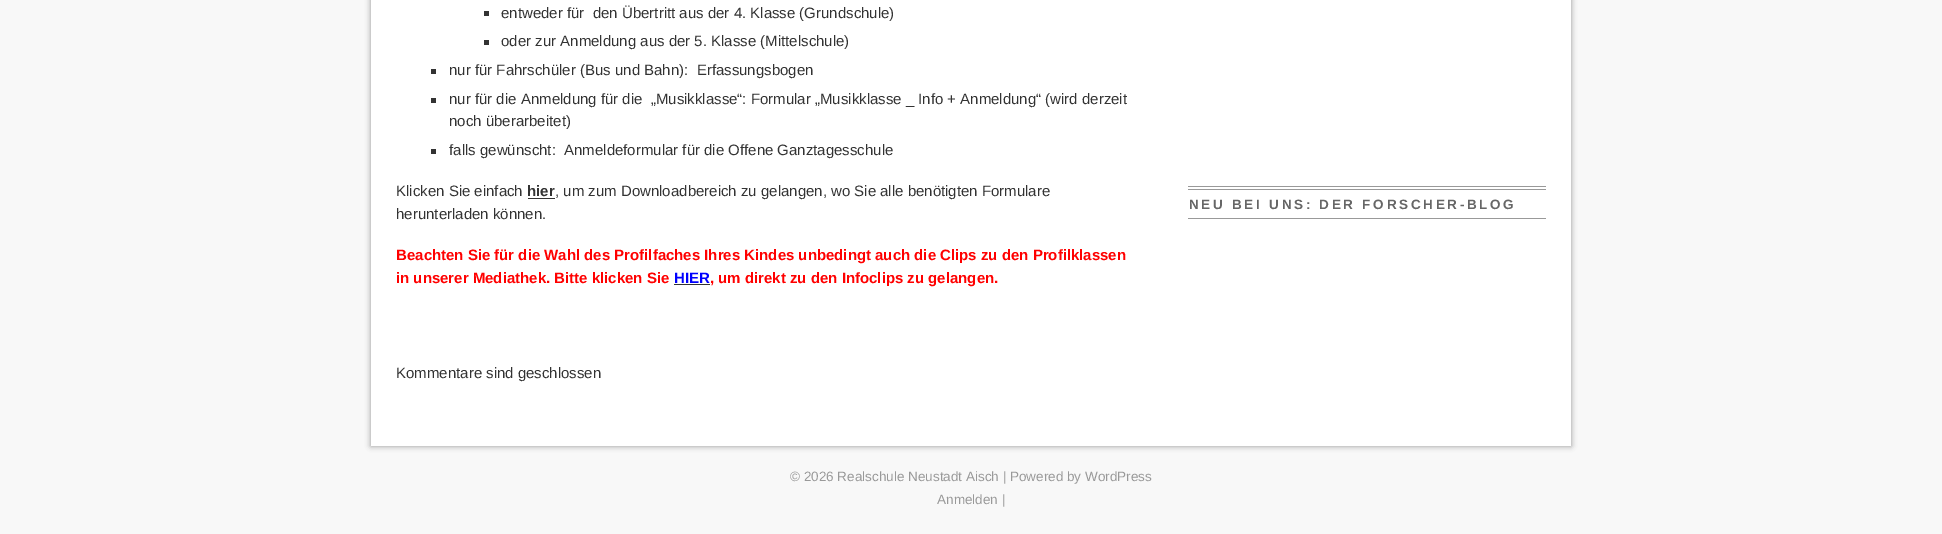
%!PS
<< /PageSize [1942 534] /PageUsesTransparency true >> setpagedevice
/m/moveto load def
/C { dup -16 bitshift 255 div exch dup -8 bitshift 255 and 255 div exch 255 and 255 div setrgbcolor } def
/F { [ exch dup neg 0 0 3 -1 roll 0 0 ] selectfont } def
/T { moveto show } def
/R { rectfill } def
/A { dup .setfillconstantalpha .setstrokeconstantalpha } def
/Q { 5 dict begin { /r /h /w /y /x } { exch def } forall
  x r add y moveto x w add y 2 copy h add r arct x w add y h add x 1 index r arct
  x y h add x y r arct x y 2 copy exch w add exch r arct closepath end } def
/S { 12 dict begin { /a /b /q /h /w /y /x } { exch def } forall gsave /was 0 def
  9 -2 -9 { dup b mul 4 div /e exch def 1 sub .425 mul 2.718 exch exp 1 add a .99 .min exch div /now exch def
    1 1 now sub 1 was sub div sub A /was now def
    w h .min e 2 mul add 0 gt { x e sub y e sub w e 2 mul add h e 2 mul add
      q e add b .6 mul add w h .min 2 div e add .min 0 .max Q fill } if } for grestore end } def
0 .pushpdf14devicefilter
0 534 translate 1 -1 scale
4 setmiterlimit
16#F8F8F8 C
0 0 1942 534 R
16#000000 C
371 -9 1200 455 0 3 .4 S
16#FFFFFF C
371 0 1200 446 R
16#333333 C
484 11 5 5 R
/LiberationSans-Regular 15 F
(entweder für  den Übertritt aus der 4. Klasse \(Grundschule\)) 501 18 T
484 40 5 5 R
(oder zur Anmeldung aus der 5. Klasse \(Mittelschule\)) 501 46 T
431 69 5 5 R
(nur für Fahrschüler \(Bus und Bahn\):  Erfassungsbogen) 449 75 T
431 98 5 5 R
(nur für die Anmeldung für die  „Musikklasse“: Formular „Musikklasse _ Info + Anmeldung“ \(wird derzeit) 449 104 T
(noch überarbeitet\)) 449 126 T
431 149 5 5 R
(falls gewünscht:  Anmeldeformular für die Offene Ganztagesschule) 449 155 T
(Klicken Sie einfach) 396 196 T
/LiberationSans-Bold 15 F
(hier) 527 196 T
528 198 27 1 R
/LiberationSans-Regular 15 F
(, um zum Downloadbereich zu gelangen, wo Sie alle benötigten Formulare) 555 196 T
(herunterladen können.) 396 219 T
/LiberationSans-Bold 15 F
16#FF0000 C
(Beachten Sie für die Wahl des Profilfaches Ihres Kindes unbedingt auch die Clips zu den Profilklassen) 396 260 T
(in unserer Mediathek. Bitte klicken Sie) 396 283 T
16#0000FF C
(HIER) 674 283 T
16#FF0000 C
(, um direkt zu den Infoclips zu gelangen.) 710 283 T
16#333333 C
674 284 36 1 R
/LiberationSans-Regular 15 F
(Kommentare sind geschlossen) 396 378 T
16#999999 C
1188 186 358 1 R
1188 189 358 1 R
1188 218 358 1 R
/LiberationSans-Bold 13.5 F
16#666666 C
1189 209 m 2.7 0 (NEU BEI UNS: DER FORSCHER-BLOG) ashow
/LiberationSans-Regular 13.5 F
16#999999 C
(© 2026 Realschule Neustadt Aisch | Powered by WordPress) 790 481 T
(Anmelden |) 937 504 T
.poppdf14devicefilter showpage
